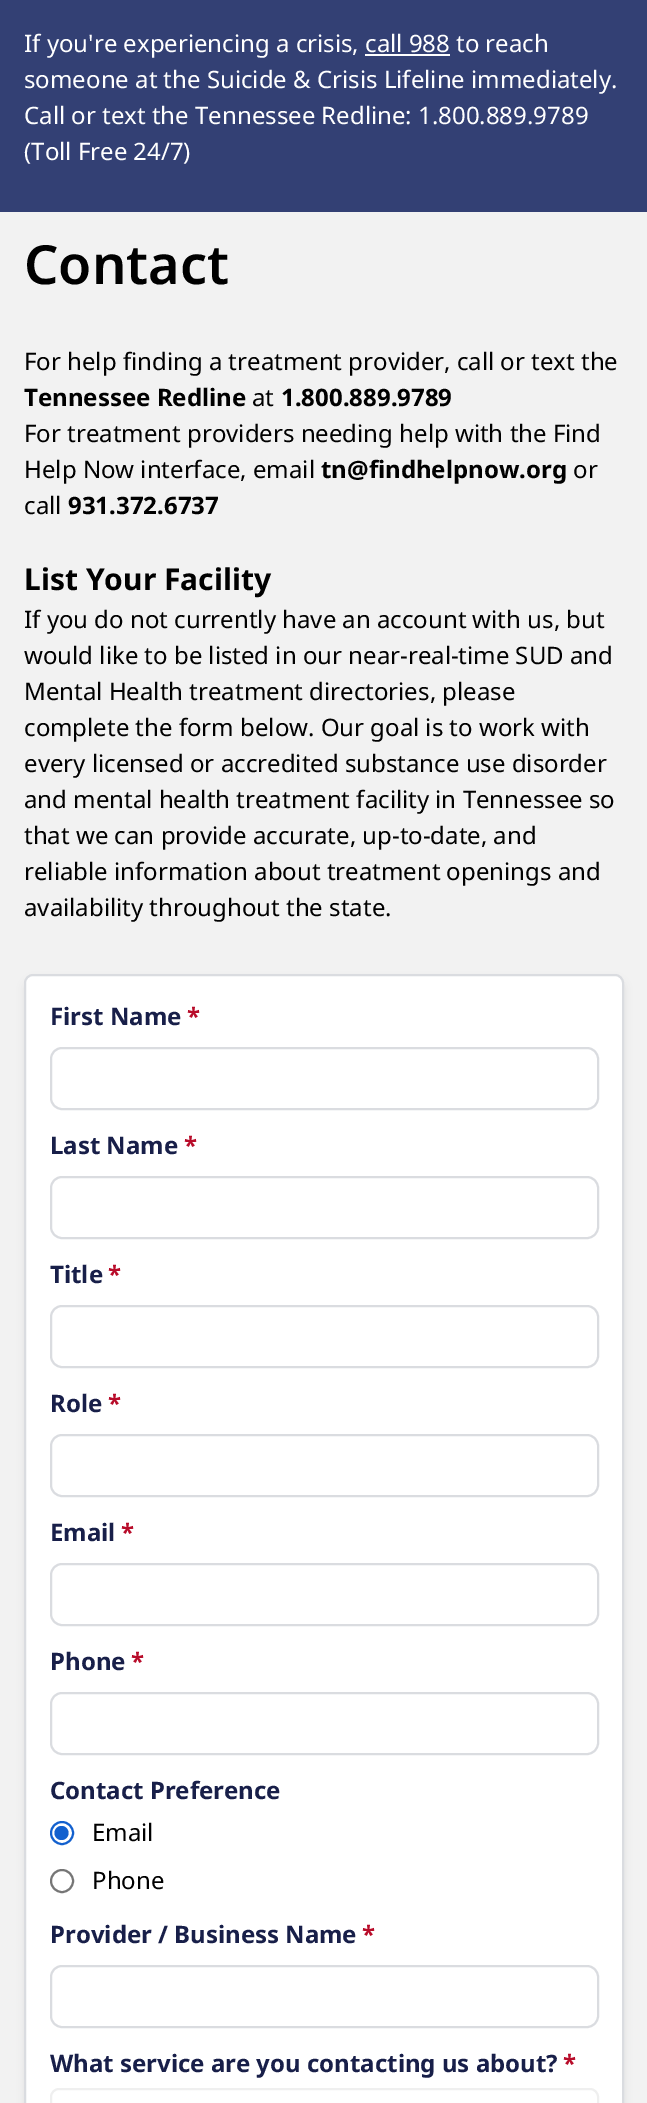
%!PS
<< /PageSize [647 2103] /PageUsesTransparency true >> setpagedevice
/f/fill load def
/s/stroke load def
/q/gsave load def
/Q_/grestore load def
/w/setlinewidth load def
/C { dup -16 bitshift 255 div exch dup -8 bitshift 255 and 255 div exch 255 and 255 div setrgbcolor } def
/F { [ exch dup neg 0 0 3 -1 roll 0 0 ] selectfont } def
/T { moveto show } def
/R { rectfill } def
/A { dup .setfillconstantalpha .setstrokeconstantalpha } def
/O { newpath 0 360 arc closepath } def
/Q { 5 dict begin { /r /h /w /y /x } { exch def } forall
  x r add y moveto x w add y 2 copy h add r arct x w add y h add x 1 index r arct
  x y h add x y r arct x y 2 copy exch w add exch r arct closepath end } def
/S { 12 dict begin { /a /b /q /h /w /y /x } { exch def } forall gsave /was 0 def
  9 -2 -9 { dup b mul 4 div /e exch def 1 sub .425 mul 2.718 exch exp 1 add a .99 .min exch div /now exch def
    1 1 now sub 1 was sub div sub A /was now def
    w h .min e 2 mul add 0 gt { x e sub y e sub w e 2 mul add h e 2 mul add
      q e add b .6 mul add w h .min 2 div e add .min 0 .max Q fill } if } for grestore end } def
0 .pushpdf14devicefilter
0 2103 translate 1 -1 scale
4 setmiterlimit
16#F2F2F2 C
0 0 647 2103 R
16#334074 C
0 0 647 212 R
/NotoSans-Regular 24 F
16#FFFFFF C
(If you're experiencing a crisis, call 988 to reach) 24 52 T
365 54 85 2 R
(someone at the Suicide & Crisis Lifeline immediately.) 24 88 T
(Call or text the Tennessee Redline: 1.800.889.9789) 24 124 T
(\(Toll Free 24/7\)) 24 160 T
/NotoSans-SemiBold 54 F
16#000000 C
(Contact) 24 284 T
/NotoSans-Regular 24 F
(For help finding a treatment provider, call or text the) 24 370 T
/NotoSans-Bold 24 F
(Tennessee Redline) 24 406 T
/NotoSans-Regular 24 F
(at) 252 406 T
/NotoSans-Bold 24 F
(1.800.889.9789) 281 406 T
/NotoSans-Regular 24 F
(For treatment providers needing help with the Find) 24 442 T
(Help Now interface, email) 24 478 T
/NotoSans-Bold 24 F
(tn@findhelpnow.org) 321 478 T
/NotoSans-Regular 24 F
(or) 573 478 T
(call) 24 514 T
/NotoSans-Bold 24 F
(931.372.6737) 68 514 T
/NotoSans-Bold 30 F
(List Your Facility) 24 590 T
/NotoSans-Regular 24 F
(If you do not currently have an account with us, but) 24 628 T
(would like to be listed in our near-real-time SUD and) 24 664 T
(Mental Health treatment directories, please) 24 700 T
(complete the form below. Our goal is to work with) 24 736 T
(every licensed or accredited substance use disorder) 24 772 T
(and mental health treatment facility in Tennessee so) 24 808 T
(that we can provide accurate, up-to-date, and) 24 844 T
(reliable information about treatment openings and) 24 880 T
(availability throughout the state.) 24 916 T
26 981 597 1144 8 4.5 .1 S
16#FFFFFF C
25 975 598 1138 8 Q q f Q_
16#DADCE0 C
2 w
s
/NotoSans-Bold 24 F
16#181F49 C
(First Name) 50 1025 T
16#B80C2A C
(*) 187 1025 T
16#DADCE0 C
51 1048 547 61 11 Q s
16#181F49 C
(Last Name) 50 1154 T
16#B80C2A C
(*) 184 1154 T
16#DADCE0 C
51 1177 547 61 11 Q s
16#181F49 C
(Title) 50 1283 T
16#B80C2A C
(*) 108 1283 T
16#DADCE0 C
51 1306 547 61 11 Q s
16#181F49 C
(Role) 50 1412 T
16#B80C2A C
(*) 108 1412 T
16#DADCE0 C
51 1435 547 61 11 Q s
16#181F49 C
(Email) 50 1541 T
16#B80C2A C
(*) 121 1541 T
16#DADCE0 C
51 1564 547 61 11 Q s
16#181F49 C
(Phone) 50 1670 T
16#B80C2A C
(*) 131 1670 T
16#DADCE0 C
51 1693 547 61 11 Q s
16#181F49 C
(Contact Preference) 50 1799 T
16#1260CE C
62 1833 11 O s
61.5 1833 7 O f
/NotoSans-Regular 24 F
16#000000 C
(Email) 92 1841 T
16#767676 C
62 1881 11 O s
16#000000 C
(Phone) 92 1889 T
/NotoSans-Bold 24 F
16#181F49 C
(Provider / Business Name) 50 1943 T
16#B80C2A C
(*) 362 1943 T
16#DADCE0 C
51 1966 547 61 11 Q s
16#181F49 C
(What service are you contacting us about?) 50 2072 T
16#B80C2A C
(*) 563 2072 T
16#EFEFEF C
51 2089 547 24 8 Q s
.poppdf14devicefilter showpage
